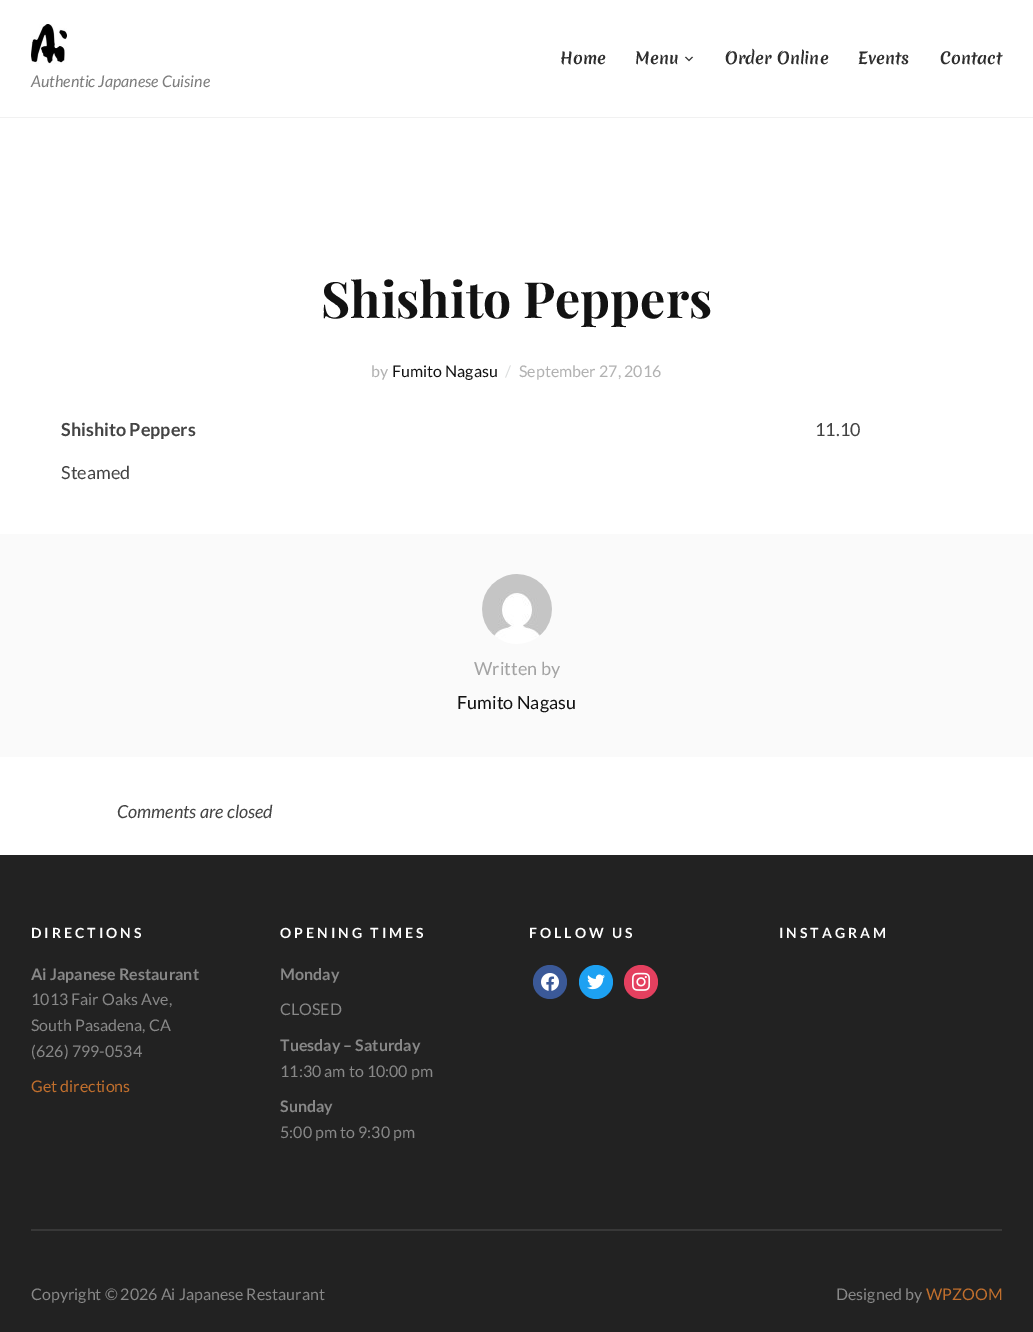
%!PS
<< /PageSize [1033 1332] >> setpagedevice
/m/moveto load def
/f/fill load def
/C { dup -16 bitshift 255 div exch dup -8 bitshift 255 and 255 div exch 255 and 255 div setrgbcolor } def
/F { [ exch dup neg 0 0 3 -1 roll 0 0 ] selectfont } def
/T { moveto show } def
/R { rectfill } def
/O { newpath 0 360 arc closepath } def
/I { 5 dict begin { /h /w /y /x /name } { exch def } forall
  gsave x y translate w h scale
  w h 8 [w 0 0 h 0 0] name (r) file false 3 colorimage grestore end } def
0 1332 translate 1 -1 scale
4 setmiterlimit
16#FFFFFF C
0 0 1033 1332 R
16#F1F1F1 C
0 117 1033 1 R
/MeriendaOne-Regular 16 F
16#2E2E2E C
(Home) 560 64 T
(Menu) 635 64 T
(1.rgb) 684 56 10 6 I
(Order Online) 725 64 T
(Events) 858 64 T
(Contact) 940 64 T
(2.rgb) 31 24 36 40 I
/Lato-Italic 16 F
16#7C7C7C C
(Authentic Japanese Cuisine) 31 87 T
/PlayfairDisplay-Bold 50 F
16#121212 C
(Shishito Peppers) 321 318 T
/Lato-Regular 16 F
16#B1B1B1 C
(by) 371 377 T
16#121212 C
(Fumito Nagasu) 392 377 T
16#DBDDDD C
(/) 505 377 T
16#B1B1B1 C
(September 27, 2016) 519 377 T
/Lato-Bold 18 F
16#444444 C
(Shishito Peppers) 61 436 T
/Lato-Regular 18 F
(11.10) 815 436 T
(Steamed) 61 479 T
16#FAFAFA C
0 534 1033 223 R
(3.rgb) 482 574 70 70 I
16#A3A3A3 C
(Written by) 474 675 T
16#121212 C
(Fumito Nagasu) 457 709 T
/Lato-Italic 18 F
16#444444 C
(Comments are closed) 117 818 T
16#222222 C
0 855 1033 477 R
16#383838 C
31 1229 971 2 R
/Lato-Bold 14 F
16#FEFEFE C
31 938 m 3 0 (DIRECTIONS) ashow
/Lato-Bold 16 F
16#888888 C
(Ai Japanese Restaurant) 31 980 T
/Lato-Regular 16 F
(1013 Fair Oaks Ave,) 31 1005 T
(South Pasadena, CA) 31 1031 T
(\(626\) 799-0534) 31 1057 T
16#C16F2D C
(Get directions) 31 1092 T
/Lato-Bold 14 F
16#FEFEFE C
280 938 m 3 0 (OPENING TIMES) ashow
/Lato-Bold 16 F
16#888888 C
(Monday) 280 980 T
/Lato-Regular 16 F
(CLOSED) 280 1015 T
/Lato-Bold 16 F
(Tuesday – Saturday) 280 1051 T
/Lato-Regular 16 F
(11:30 am to 10:00 pm) 280 1077 T
/Lato-Bold 16 F
(Sunday) 280 1112 T
/Lato-Regular 16 F
(5:00 pm to 9:30 pm) 280 1138 T
/Lato-Bold 14 F
16#FEFEFE C
529 938 m 3 0 (FOLLOW US) ashow
16#3B5998 C
550 982 17 O f
(4.rgb) 541 973 18 18 I
16#1DA1F2 C
596 982 17 O f
(5.rgb) 587 974 18 16 I
16#E4405F C
641 982 17 O f
(6.rgb) 632 972 18 19 I
16#FEFEFE C
779 938 m 3 0 (INSTAGRAM) ashow
/Lato-Regular 16 F
16#888888 C
(Copyright © 2026 Ai Japanese Restaurant) 31 1300 T
(Designed by) 836 1300 T
16#C16F2D C
(WPZOOM) 926 1300 T
showpage
